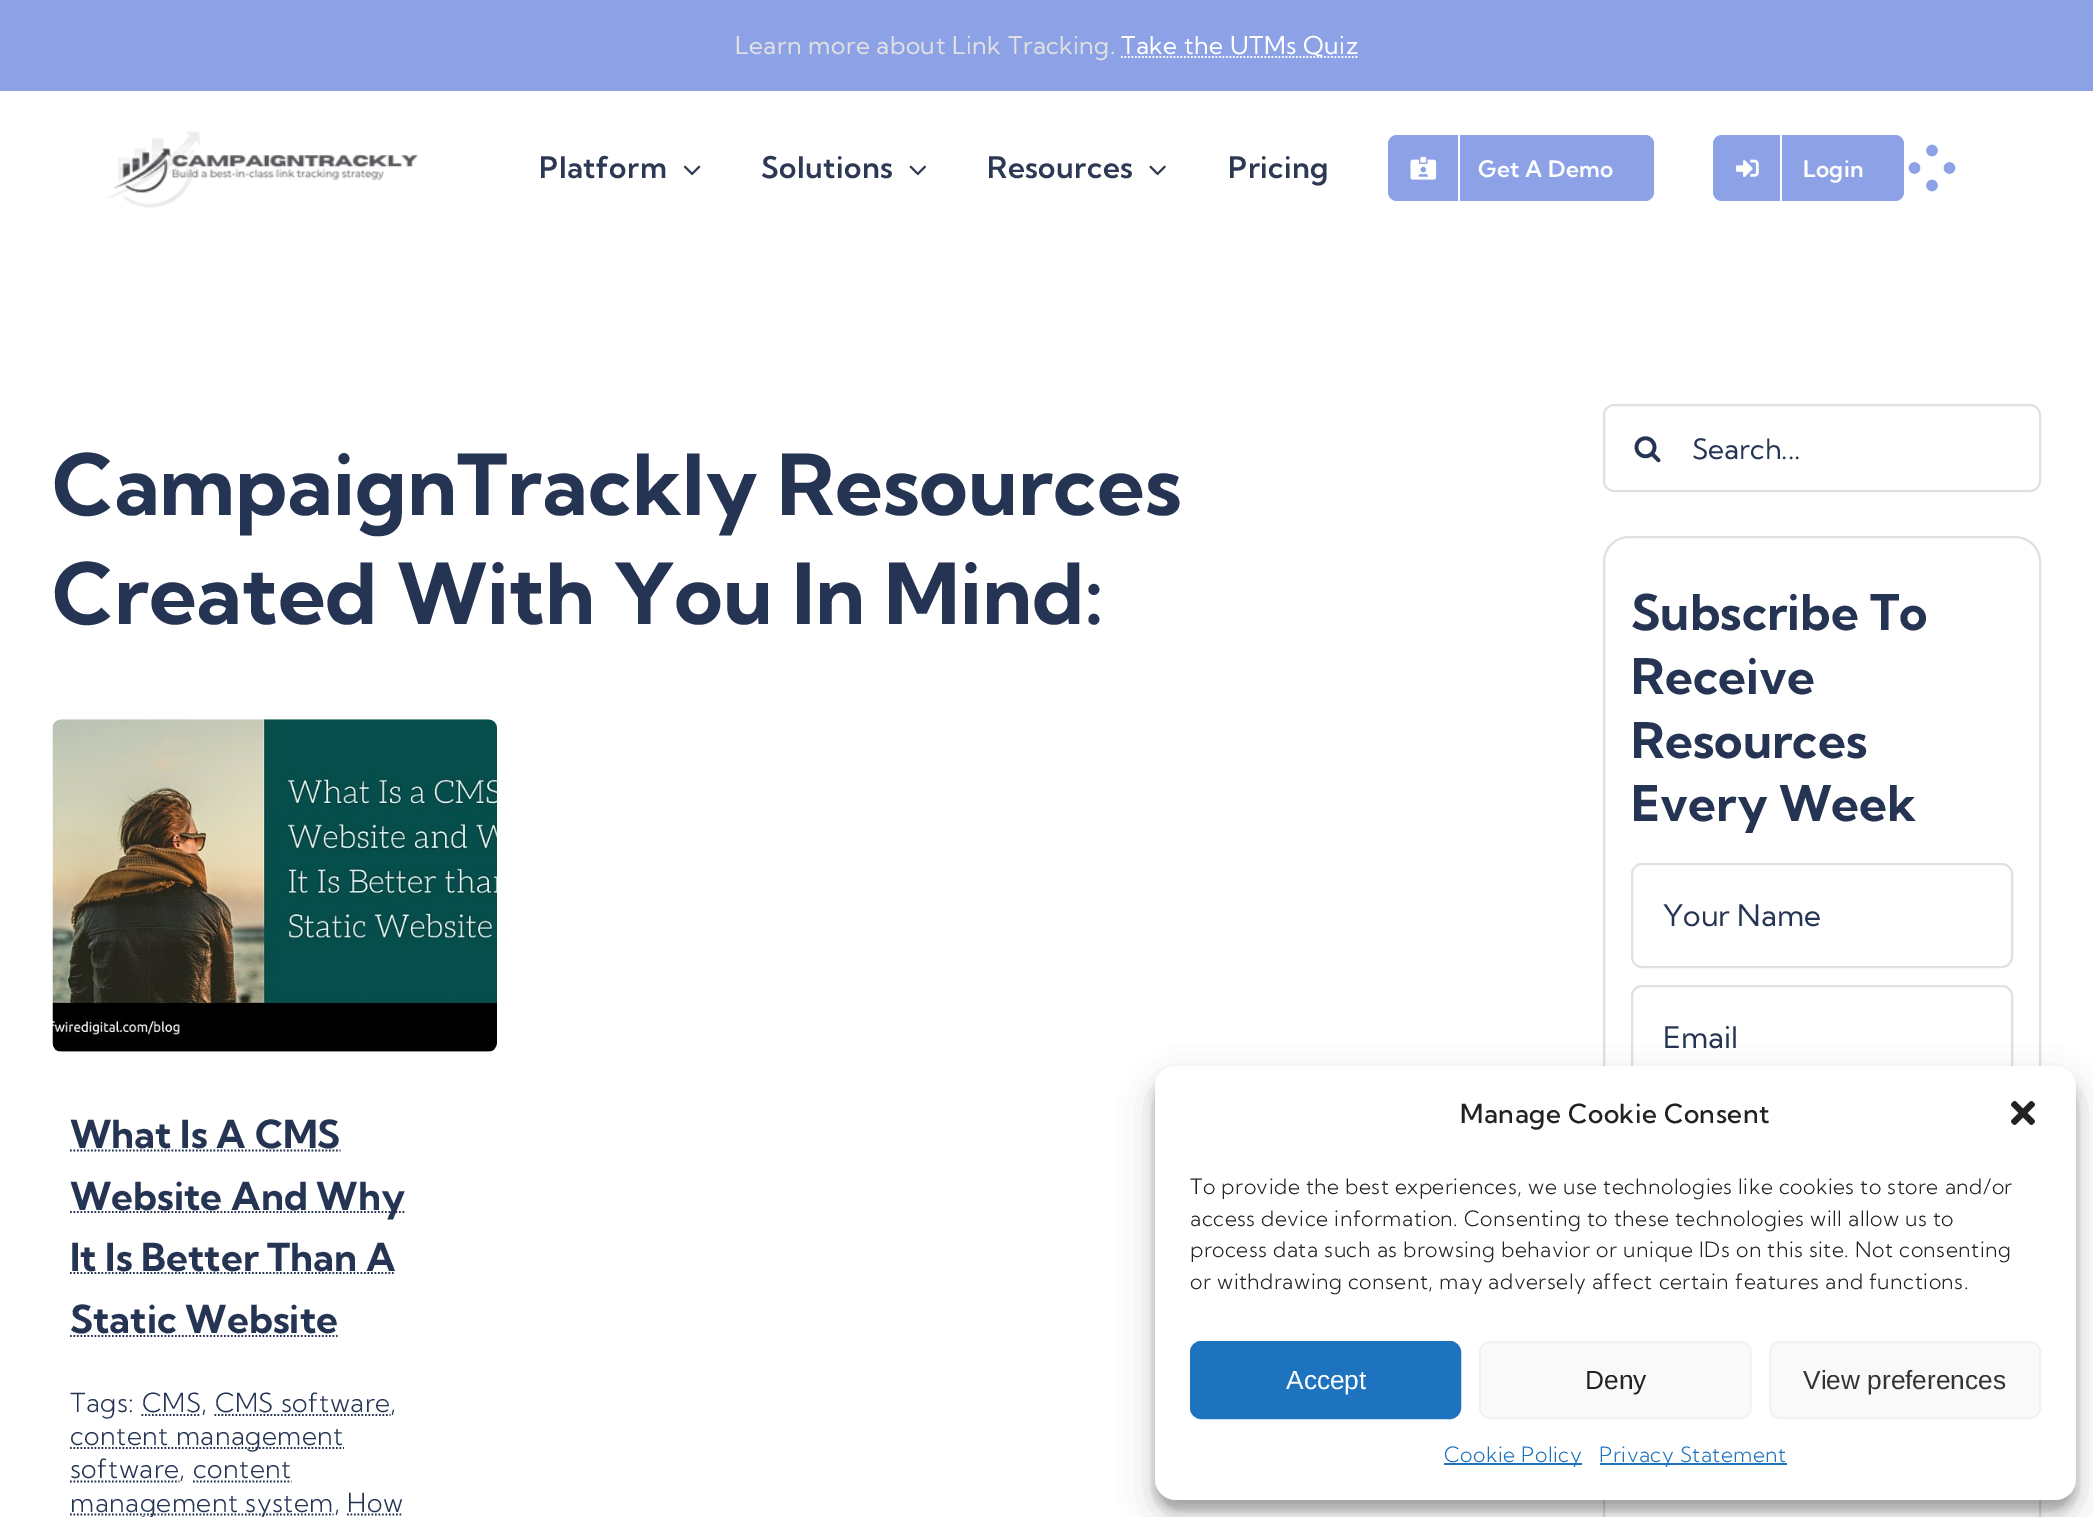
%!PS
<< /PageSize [2093 1517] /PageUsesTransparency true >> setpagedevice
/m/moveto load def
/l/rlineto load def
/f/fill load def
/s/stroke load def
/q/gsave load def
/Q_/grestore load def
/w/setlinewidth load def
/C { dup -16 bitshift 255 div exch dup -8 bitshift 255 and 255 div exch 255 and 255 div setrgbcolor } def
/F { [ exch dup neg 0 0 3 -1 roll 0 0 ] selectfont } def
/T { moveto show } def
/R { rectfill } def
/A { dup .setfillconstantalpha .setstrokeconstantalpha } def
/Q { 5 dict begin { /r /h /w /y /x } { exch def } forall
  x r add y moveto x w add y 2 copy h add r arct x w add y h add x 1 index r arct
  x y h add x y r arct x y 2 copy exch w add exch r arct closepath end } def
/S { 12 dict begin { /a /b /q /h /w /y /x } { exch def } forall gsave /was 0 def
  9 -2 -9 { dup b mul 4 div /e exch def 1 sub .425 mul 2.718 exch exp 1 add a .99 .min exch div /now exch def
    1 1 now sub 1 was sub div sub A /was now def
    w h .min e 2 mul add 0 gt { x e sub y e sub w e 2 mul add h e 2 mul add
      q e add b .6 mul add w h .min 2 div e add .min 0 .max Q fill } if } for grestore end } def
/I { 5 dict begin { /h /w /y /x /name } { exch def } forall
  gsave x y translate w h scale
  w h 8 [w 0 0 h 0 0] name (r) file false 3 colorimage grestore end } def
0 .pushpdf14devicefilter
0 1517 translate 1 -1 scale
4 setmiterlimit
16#FFFFFF C
0 0 2093 1517 R
16#8DA2E6 C
0 0 2093 91 R
/KumbhSans-Regular 24.5 F
16#E0E0E0 C
735 54 m .4 0 (Learn more about Link Tracking.) ashow
16#FFFFFF C
1.8 w
[1.75 1.75] 0 setdash
1121 57 m 237 0 l s
1121 54 m .4 0 (Take the UTMs Quiz) ashow
(1.rgb) 105 131 313 77 I
/KumbhSans-SemiBold 29.75 F
16#2D3954 C
539 178 m .45 0 (Platform) ashow
(2.rgb) 683 165 18 11 I
761 178 m .45 0 (Solutions) ashow
(3.rgb) 909 165 17 11 I
987 178 m .45 0 (Resources) ashow
(4.rgb) 1149 165 17 11 I
1228 178 m .45 0 (Pricing) ashow
16#8DA2E6 C
1388 135 266 66 9 Q f
16#FFFFFF C
1458 135 2 66 R
(5.rgb) 1410 156 27 24 I
/KumbhSans-SemiBold 22.75 F
1478 177 m .25 0 (Get A Demo) ashow
16#8DA2E6 C
1713 135 191 66 9 Q f
16#FFFFFF C
1780 135 2 66 R
(6.rgb) 1736 159 23 18 I
1803 177 m .25 0 (Login) ashow
(7.rgb) 1908 144 48 48 I
/KumbhSans-Bold 84 F
16#263453 C
(CampaignTrackly Resources) 52 515 T
(Created With You In Mind:) 52 624 T
(8.rgb) 52 719 445 333 I
/KumbhSans-Bold 38.5 F
(What Is A CMS) 70 1148 T
70 1150.5 m 270.5 0 l s
70 1212 m 335 0 l s
(Website And Why) 70 1210 T
(It Is Better Than A) 70 1271 T
70 1273 m 325.5 0 l s
(Static Website) 70 1333 T
70 1336 m 267.5 0 l s
/KumbhSans-Light 26.25 F
70 1412 m .45 0 (Tags: CMS, CMS software,) ashow
141.5 1415 m 59.5 0 l s
214.5 1415 m 176 0 l s
70 1448 m 274 0 l s
70 1445 m .45 0 (content management) ashow
70 1481.5 m 109.5 0 l s
70 1478 m .45 0 (software, content) ashow
70 1514.5 m 263.5 0 l s
70 1512 m .45 0 (management system, How) ashow
193 1481.5 m 98.5 0 l s
347 1514.5 m 56 0 l s
16#E0E0E0 C
2 w
[] 0 setdash
1604 405 436 86 10 Q s
(9.rgb) 1634 436 27 27 I
/KumbhSans-Regular 28 F
16#263453 C
(Search...) 1692 459 T
16#E0E0E0 C
1604 537 436 759 25 Q s
/KumbhSans-Bold 49 F
16#263453 C
(Subscribe To) 1631 630 T
(Receive) 1631 694 T
(Resources) 1631 758 T
(Every Week) 1631 821 T
16#E0E0E0 C
1632 864 380 103 10 Q s
/KumbhSans-Regular 29.75 F
16#263453 C
(Your Name) 1663 926 T
16#E0E0E0 C
1632 986 380 103 10 Q s
16#263453 C
(Email) 1663 1048 T
16#E0E0E0 C
1604 1385 436 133 rectstroke
16#000000 C
1155 1076 921 434 21 5 .23 S
1155 1083 921 434 21 17.5 .19 S
16#FFFFFF C
1155 1066 921 434 21 Q f
/KumbhSans-Medium 26.25 F
16#222222 C
1460 1123 m .45 0 (Manage Cookie Consent) ashow
(10.rgb) 2011 1101 24 24 I
/KumbhSans-Light 21 F
1190 1194 m .45 0 (To provide the best experiences, we use technologies like cookies to store and/or) ashow
1190 1226 m .45 0 (access device information. Consenting to these technologies will allow us to) ashow
1190 1257 m .45 0 (process data such as browsing behavior or unique IDs on this site. Not consenting) ashow
1190 1289 m .45 0 (or withdrawing consent, may adversely affect certain features and functions.) ashow
16#1E73BE C
1191 1342 269 76 10 Q q f Q_
s
/LiberationSans-Regular 26.25 F
16#FFFFFF C
(Accept) 1286 1389 T
16#F9F9F9 C
1480 1342 271 76 10 Q q f Q_
16#F2F2F2 C
s
16#222222 C
(Deny) 1585 1389 T
16#F9F9F9 C
1770 1342 270 76 10 Q q f Q_
16#F2F2F2 C
s
16#333333 C
(View preferences) 1803 1389 T
16#1E73BE C
1444 1463 138 2 R
/KumbhSans-Light 21 F
1444 1462 m .45 0 (Cookie Policy) ashow
1600 1463 187 2 R
1599 1462 m .45 0 (Privacy Statement) ashow
.poppdf14devicefilter showpage
